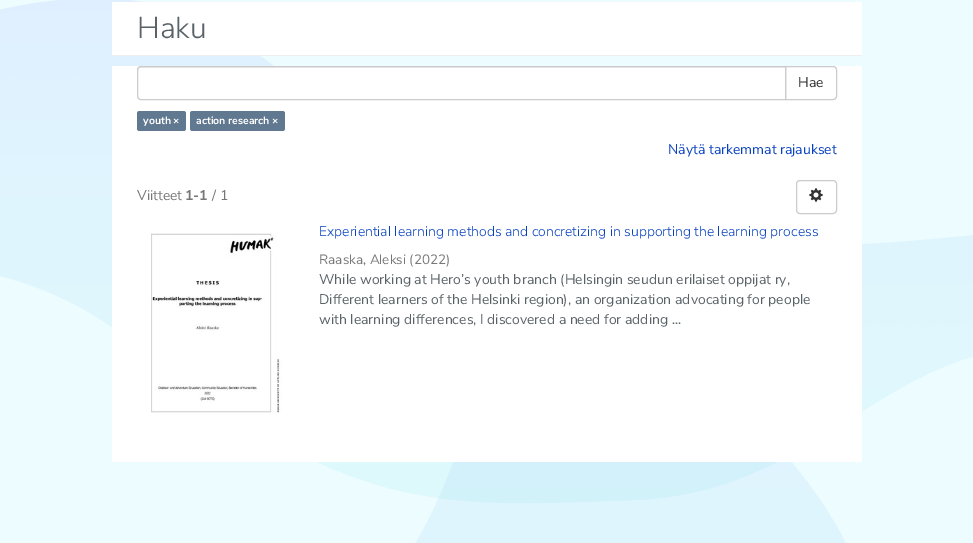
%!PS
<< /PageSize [973 543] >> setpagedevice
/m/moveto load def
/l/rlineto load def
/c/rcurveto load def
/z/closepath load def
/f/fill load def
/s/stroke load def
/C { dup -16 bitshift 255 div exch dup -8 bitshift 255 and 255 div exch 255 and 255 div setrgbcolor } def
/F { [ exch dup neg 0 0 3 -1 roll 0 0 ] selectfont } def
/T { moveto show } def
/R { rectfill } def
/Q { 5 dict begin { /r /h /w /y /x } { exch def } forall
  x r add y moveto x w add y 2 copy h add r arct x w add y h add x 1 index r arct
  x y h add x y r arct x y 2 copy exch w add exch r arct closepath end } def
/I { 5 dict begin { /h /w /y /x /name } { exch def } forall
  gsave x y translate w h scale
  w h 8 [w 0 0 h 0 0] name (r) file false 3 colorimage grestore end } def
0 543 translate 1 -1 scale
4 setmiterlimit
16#EDFCFF C
0 0 973 543 R
(1.rgb) 0 0 973 543 I
16#FFFFFF C
112 2 750 53 R
16#EEEEEE C
112 55 750 1 R
/NunitoSans-Light 30 F
16#586267 C
(Haku) 137 38 T
16#FFFFFF C
112 66 750 396 R
16#CCCCCC C
785.5 66.5 m 47.5 0 l 2 0 3.5 1.5 3.5 3.5 c 0 26 l 0 2 -1.5 3.5 -3.5 3.5 c -47.5 0 l z s
16#FFFFFF C
141 66 m 645 0 l 0 34 l -645 0 l -2 0 -4 -2 -4 -4 c 0 -26 l 0 -2 2 -4 4 -4 c z f
16#ECECEC C
141 68 m 644 0 l 0 -1 l -644 0 l -2 0 -3 1 -3 3 c 0 1 l 0 -2 1 -3 3 -3 c z f
16#CCCCCC C
141 66.5 m 644.5 0 l 0 33 l -644.5 0 l -2 0 -3.5 -1.5 -3.5 -3.5 c 0 -26 l 0 -2 1.5 -3.5 3.5 -3.5 c z s
/NunitoSans-Regular 14 F
16#333333 C
(Hae) 798 87 T
16#607890 C
137 111 49 20 2.5 Q f
/NunitoSans-Bold 10.5 F
16#FFFFFF C
(youth ×) 143 124 T
16#607890 C
190 111 95 20 2.5 Q f
16#FFFFFF C
(action research ×) 196 124 T
/NunitoSans-Regular 14 F
16#0841BF C
(Näytä tarkemmat rajaukset) 668 154 T
16#777777 C
(Viitteet) 137 200 T
/NunitoSans-Bold 14 F
(1-1) 185 200 T
/NunitoSans-Regular 14 F
(/ 1) 212 200 T
16#CCCCCC C
796.5 180.5 40 33 3.5 Q s
(2.rgb) 809 188 14 14 I
(3.rgb) 151 233 131 180 I
/NunitoSans-Light 14 F
16#0841BF C
(Experiential learning methods and concretizing in supporting the learning process) 319 236 T
/NunitoSans-Regular 13.5 F
16#777777 C
(Raaska, Aleksi \(2022\)) 319 264 T
/NunitoSans-Regular 14 F
16#586267 C
(While working at Hero’s youth branch \(Helsingin seudun erilaiset oppijat ry,) 319 284 T
(Different learners of the Helsinki region\), an organization advocating for people) 319 304 T
(with learning differences, I discovered a need for adding ...) 319 324 T
showpage
